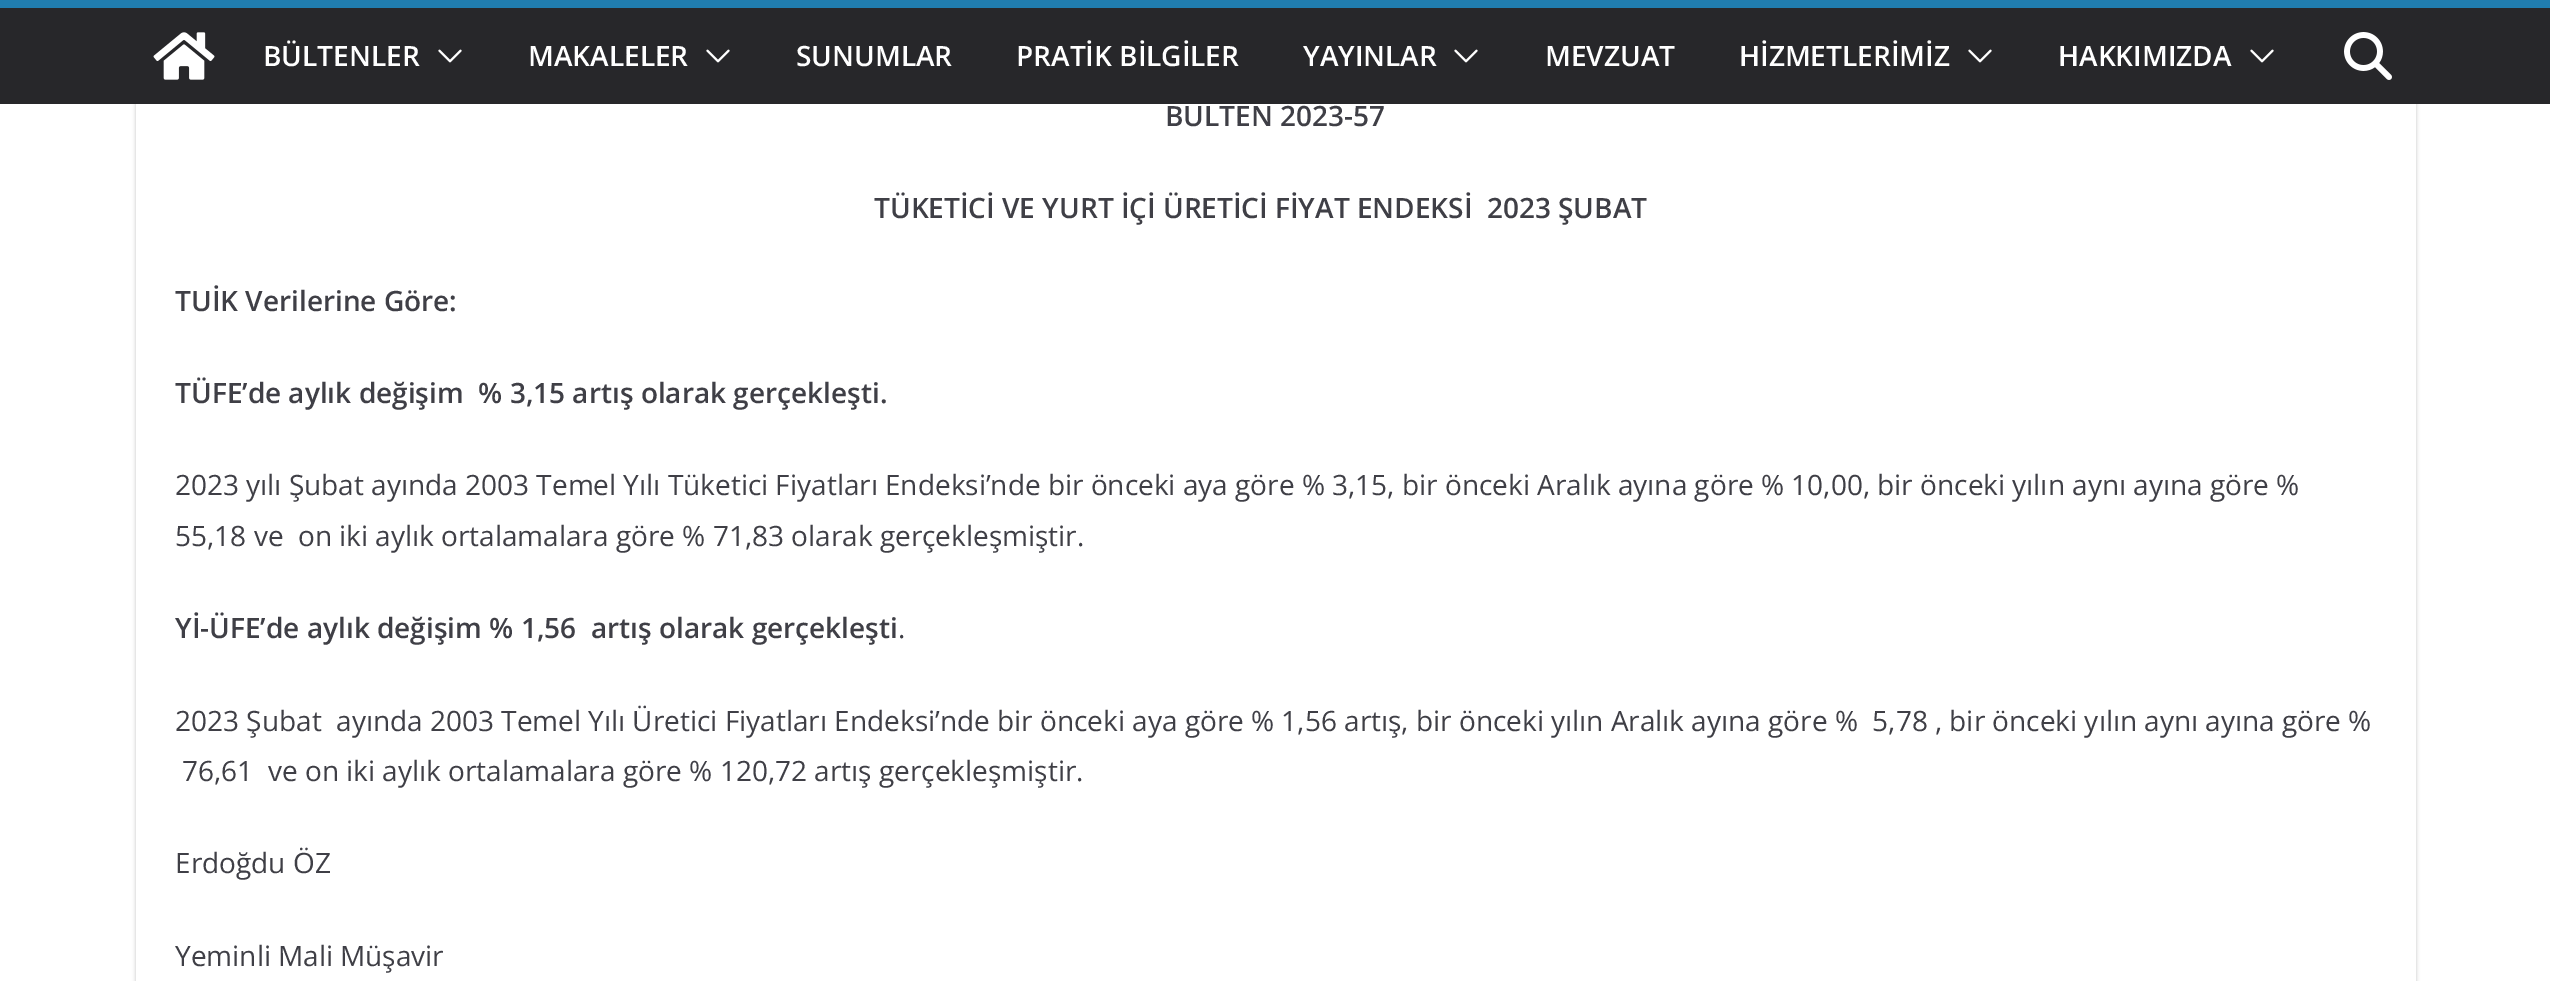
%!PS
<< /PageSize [2550 981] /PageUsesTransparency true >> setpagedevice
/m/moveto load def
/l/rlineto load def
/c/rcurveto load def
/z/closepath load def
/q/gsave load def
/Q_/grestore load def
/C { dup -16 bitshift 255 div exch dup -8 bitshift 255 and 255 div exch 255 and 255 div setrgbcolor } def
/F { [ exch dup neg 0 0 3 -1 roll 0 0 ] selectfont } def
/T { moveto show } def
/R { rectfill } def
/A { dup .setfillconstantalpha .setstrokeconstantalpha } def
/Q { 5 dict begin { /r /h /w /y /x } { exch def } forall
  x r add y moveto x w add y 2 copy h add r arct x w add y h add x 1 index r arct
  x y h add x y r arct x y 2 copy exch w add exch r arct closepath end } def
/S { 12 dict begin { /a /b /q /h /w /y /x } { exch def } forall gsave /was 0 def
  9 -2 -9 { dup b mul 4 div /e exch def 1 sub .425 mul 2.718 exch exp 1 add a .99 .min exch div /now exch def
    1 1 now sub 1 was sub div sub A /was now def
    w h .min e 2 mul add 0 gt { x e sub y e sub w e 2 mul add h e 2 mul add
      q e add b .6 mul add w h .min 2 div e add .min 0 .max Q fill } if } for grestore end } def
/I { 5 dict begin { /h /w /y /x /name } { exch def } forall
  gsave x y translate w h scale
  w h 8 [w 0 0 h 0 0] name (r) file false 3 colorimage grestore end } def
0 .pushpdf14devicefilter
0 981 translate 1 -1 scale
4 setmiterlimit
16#FFFFFF C
0 0 2550 981 R
q
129 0 m 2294 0 l 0 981 l -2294 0 l z 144 -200 m 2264 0 l 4.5 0 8 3.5 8 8 c 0 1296 l 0 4.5 -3.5 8 -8 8 c -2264 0 l -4.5 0 -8 -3.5 -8 -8 c 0 -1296 l 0 -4.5 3.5 -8 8 -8 c z eoclip newpath
16#000000 C
136 -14 2280 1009 8 2 .24 S
Q_
/OpenSans-SemiBold 28 F
16#3F3F46 C
(BÜLTEN 2023-57) 1165 126 T
16#27272A C
0 8 2550 96 R
16#207DAF C
0 0 2550 8 R
(1.rgb) 153 32 62 48 I
16#FFFFFF C
(BÜLTENLER) 263 66 T
(2.rgb) 438 49 24 14 I
(MAKALELER) 528 66 T
(2.rgb) 706 49 24 14 I
(SUNUMLAR) 796 66 T
(PRATİK BİLGİLER) 1016 66 T
(YAYINLAR) 1303 66 T
(2.rgb) 1454 49 24 14 I
(MEVZUAT) 1545 66 T
(HİZMETLERİMİZ) 1739 66 T
(2.rgb) 1968 49 24 14 I
(HAKKIMIZDA) 2058 66 T
(2.rgb) 2250 49 24 14 I
(3.rgb) 2344 32 48 48 I
16#3F3F46 C
(TÜKETİCİ VE YURT İÇİ ÜRETİCİ FİYAT ENDEKSİ  2023 ŞUBAT) 874 218 T
(TUİK Verilerine Göre:) 175 311 T
(TÜFE’de aylık değişim  % 3,15 artış olarak gerçekleşti.) 175 403 T
/OpenSans-Regular 28 F
(2023 yılı Şubat ayında 2003 Temel Yılı Tüketici Fiyatları Endeksi’nde bir önceki aya göre % 3,15, bir önceki Aralık ayına göre % 10,00, bir önceki yılın aynı ayına göre %) 175 495 T
(55,18 ve  on iki aylık ortalamalara göre % 71,83 olarak gerçekleşmiştir.) 175 546 T
/OpenSans-SemiBold 28 F
(Yİ-ÜFE’de aylık değişim % 1,56  artış olarak gerçekleşti) 175 638 T
/OpenSans-Regular 28 F
(.) 898 638 T
(2023 Şubat  ayında 2003 Temel Yılı Üretici Fiyatları Endeksi’nde bir önceki aya göre % 1,56 artış, bir önceki yılın Aralık ayına göre %  5,78 , bir önceki yılın aynı ayına göre %) 175 731 T
(76,61  ve on iki aylık ortalamalara göre % 120,72 artış gerçekleşmiştir.) 182 781 T
(Erdoğdu ÖZ) 175 873 T
(Yeminli Mali Müşavir) 175 966 T
.poppdf14devicefilter showpage
